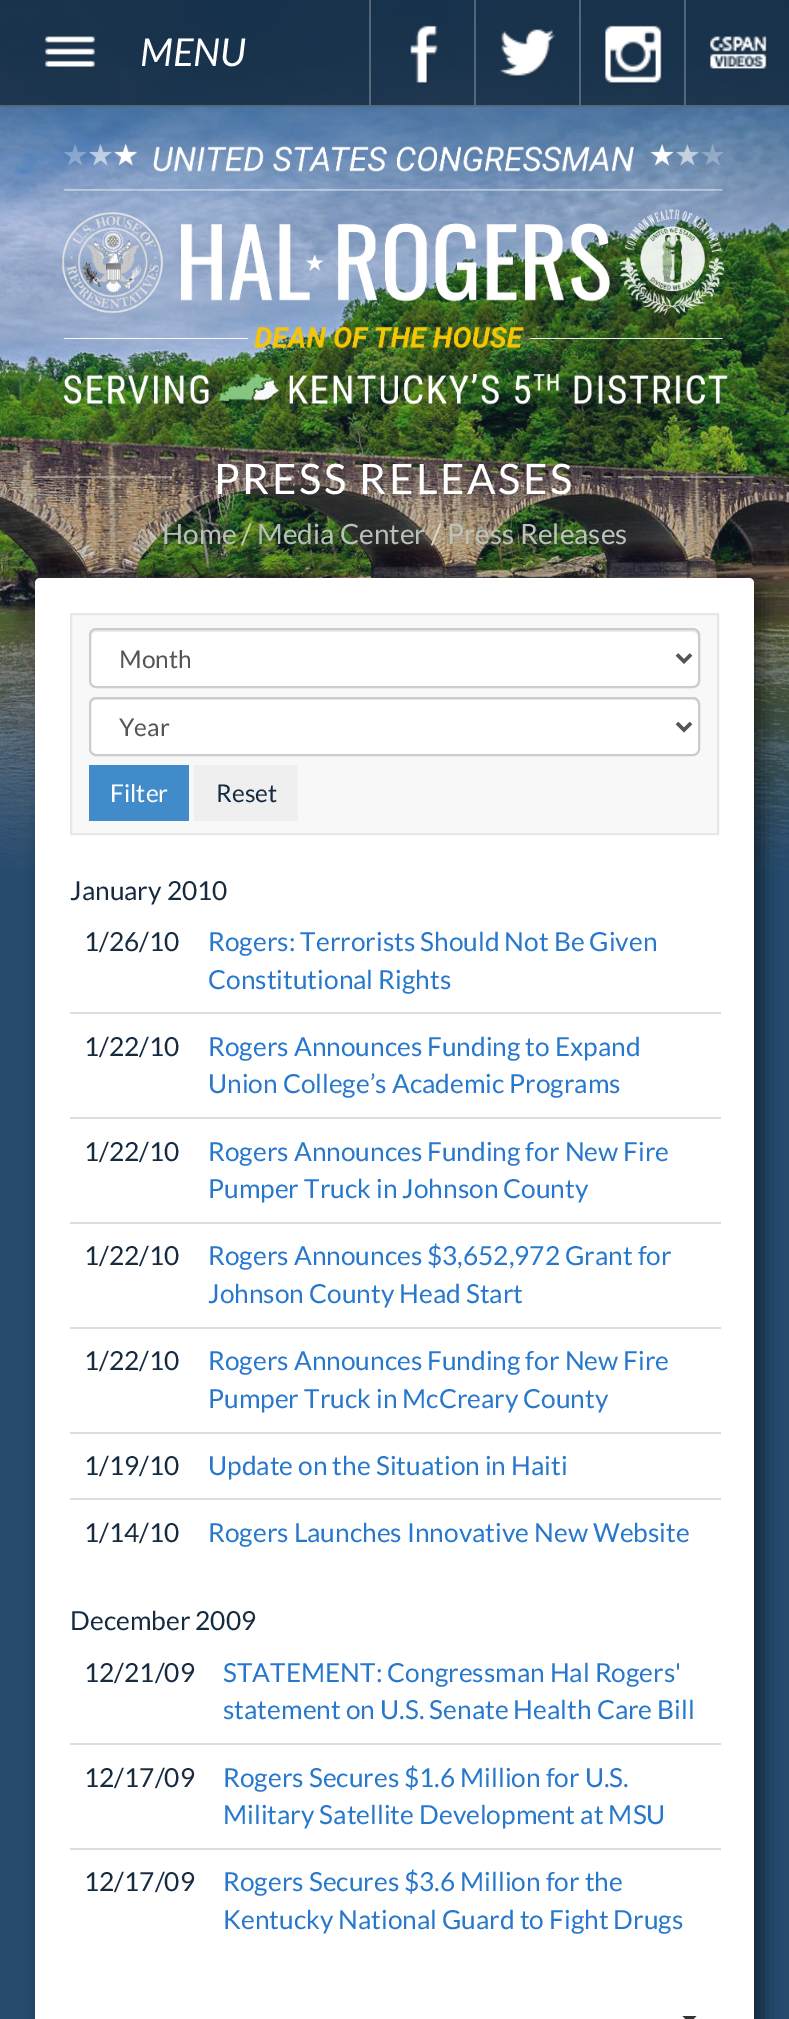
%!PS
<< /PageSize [789 2019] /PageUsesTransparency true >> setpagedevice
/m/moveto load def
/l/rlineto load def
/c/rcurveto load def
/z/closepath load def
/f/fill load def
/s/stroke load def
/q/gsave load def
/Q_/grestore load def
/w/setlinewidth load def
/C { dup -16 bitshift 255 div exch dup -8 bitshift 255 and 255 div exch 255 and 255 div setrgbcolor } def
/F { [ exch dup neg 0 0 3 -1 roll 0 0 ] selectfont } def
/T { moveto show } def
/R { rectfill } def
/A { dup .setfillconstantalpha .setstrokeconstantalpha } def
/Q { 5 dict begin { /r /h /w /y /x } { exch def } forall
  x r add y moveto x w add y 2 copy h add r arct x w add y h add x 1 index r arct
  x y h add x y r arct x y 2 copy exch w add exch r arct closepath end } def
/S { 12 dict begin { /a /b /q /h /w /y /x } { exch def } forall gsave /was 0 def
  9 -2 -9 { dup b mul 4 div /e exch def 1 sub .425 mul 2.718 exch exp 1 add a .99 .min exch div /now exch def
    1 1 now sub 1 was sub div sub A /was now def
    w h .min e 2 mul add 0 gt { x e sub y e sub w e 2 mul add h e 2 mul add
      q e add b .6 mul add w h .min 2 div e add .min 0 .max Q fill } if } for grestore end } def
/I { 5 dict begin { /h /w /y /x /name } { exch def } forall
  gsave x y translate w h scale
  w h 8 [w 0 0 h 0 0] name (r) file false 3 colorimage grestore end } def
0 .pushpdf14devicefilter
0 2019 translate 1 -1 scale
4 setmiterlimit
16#264A6E C
0 0 789 2019 R
(1.rgb) 0 0 789 871 I
0.85 A
16#162B40 C
0 0 789 107 R
0.25 A
16#FFFFFF C
0 105 789 2 R
1 A
(2.rgb) 45 36 50 31 I
/Lato-Italic 38.5 F
(MENU) 140 66 T
(3.rgb) 410 25 28 60 I
0.25 A
369 0 2 105 R
1 A
(4.rgb) 500 29 55 49 I
0.25 A
474 0 2 105 R
1 A
(5.rgb) 605 25 58 60 I
0.25 A
579 0 2 105 R
1 A
(6.rgb) 710 36 58 34 I
0.25 A
684 0 2 105 R
1 A
(7.rgb) 62 143 666 262 I
0.35 A
35 476 137 2 R
/Lato-Regular 42 F
1 A
214 494 m 2.6 0 (PRESS RELEASES) ashow
0.35 A
618 476 136 2 R
/Lato-Regular 28 F
1 A
16#B9C0B5 C
(Home) 162 544 T
16#C3D0B1 C
(/) 241 544 T
16#B9C0B5 C
(Media Center) 257 544 T
16#DFD8CF C
(/) 431 544 T
16#BFC2BA C
(Press Releases) 447 544 T
16#000000 C
44 586 719 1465 5 9 .5 S
16#FFFFFF C
35 578 719 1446 5 Q f
16#F8F8F8 C
71 614 m 647 0 l 0 220 l -647 0 l z q f Q_
16#E7E7E7 C
2 w
s
16#FFFFFF C
89 628 611 60 7 Q f
16#ECECEC C
96 632 m 597 0 l 3 0 5 2 5 5 c 0 -3 -1 -7 -5 -7 c -597 0 l -4 0 -5 4 -5 7 c 0 -3 2 -5 5 -5 c z f
16#CCCCCC C
90 629 609 58 6 Q s
16#555555 C
3.5 w
677 654.5 m 7 7 l 7 -7 l s
/Lato-Regular 24.5 F
(Month) 119 668 T
16#FFFFFF C
89 697 611 59 7 Q f
16#ECECEC C
96 700 m 597 0 l 3 0 5 2 5 5 c 0 -3 -1 -7 -5 -7 c -597 0 l -4 0 -5 4 -5 7 c 0 -3 2 -5 5 -5 c z f
16#CCCCCC C
2 w
90 698 609 57 6 Q s
16#555555 C
3.5 w
677 723 m 7 7 l 7 -7 l s
(Year) 119 736 T
16#428BCA C
89 765 100 56 R
16#FFFFFF C
(Filter) 110 802 T
16#EFEFEF C
194 765 104 56 R
16#162B40 C
(Reset) 216 802 T
/Lato-Regular 26.25 F
(January 2010) 70 900 T
(1/26/10) 84 951 T
16#2778CC C
(Rogers: Terrorists Should Not Be Given) 208 951 T
(Constitutional Rights) 208 989 T
16#162B40 C
(1/22/10) 84 1056 T
16#DDDDDD C
70 1012 651 2 R
16#2778CC C
(Rogers Announces Funding to Expand) 208 1056 T
(Union College’s Academic Programs) 208 1093 T
16#162B40 C
(1/22/10) 84 1161 T
16#DDDDDD C
70 1117 651 2 R
16#2778CC C
(Rogers Announces Funding for New Fire) 208 1161 T
(Pumper Truck in Johnson County) 208 1198 T
16#162B40 C
(1/22/10) 84 1265 T
16#DDDDDD C
70 1222 651 2 R
16#2778CC C
(Rogers Announces $3,652,972 Grant for) 208 1265 T
(Johnson County Head Start) 208 1303 T
16#162B40 C
(1/22/10) 84 1370 T
16#DDDDDD C
70 1327 651 2 R
16#2778CC C
(Rogers Announces Funding for New Fire) 208 1370 T
(Pumper Truck in McCreary County) 208 1408 T
16#162B40 C
(1/19/10) 84 1475 T
16#DDDDDD C
70 1432 651 2 R
16#2778CC C
(Update on the Situation in Haiti) 208 1475 T
16#162B40 C
(1/14/10) 84 1542 T
16#DDDDDD C
70 1498 651 2 R
16#2778CC C
(Rogers Launches Innovative New Website) 208 1542 T
16#162B40 C
(December 2009) 70 1630 T
(12/21/09) 84 1682 T
16#2778CC C
(STATEMENT: Congressman Hal Rogers') 223 1682 T
(statement on U.S. Senate Health Care Bill) 223 1719 T
16#162B40 C
(12/17/09) 84 1787 T
16#DDDDDD C
70 1743 651 2 R
16#2778CC C
(Rogers Secures $1.6 Million for U.S.) 223 1787 T
(Military Satellite Development at MSU) 223 1824 T
16#162B40 C
(12/17/09) 84 1891 T
16#DDDDDD C
70 1848 651 2 R
16#2778CC C
(Rogers Secures $3.6 Million for the) 223 1891 T
(Kentucky National Guard to Fight Drugs) 223 1929 T
16#333333 C
682.5 2016 m 14 0 l -7 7 l z f
.poppdf14devicefilter showpage
